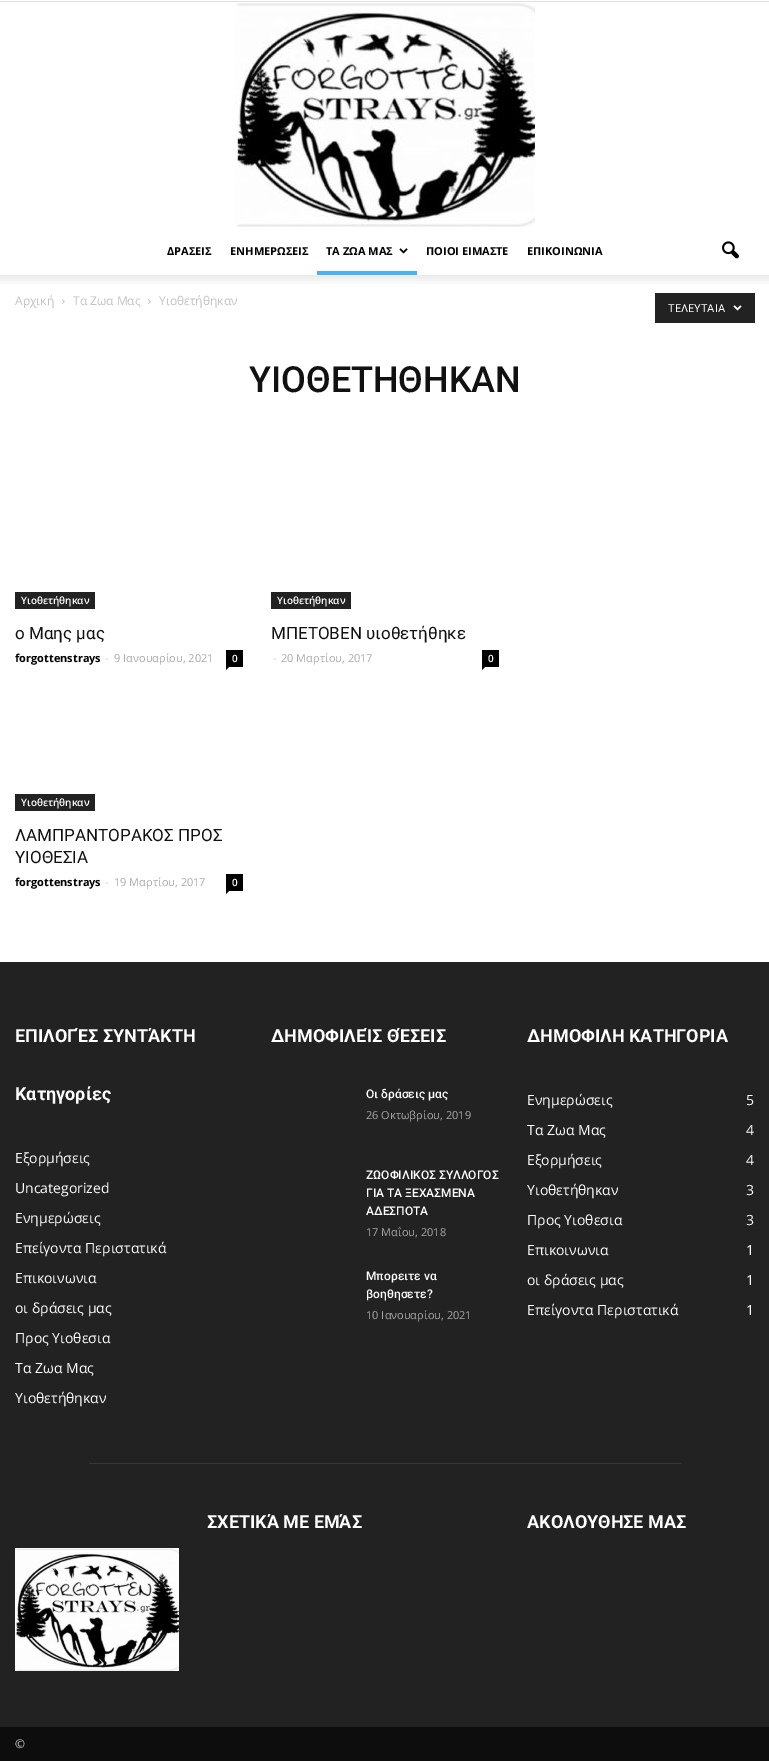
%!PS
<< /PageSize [769 1761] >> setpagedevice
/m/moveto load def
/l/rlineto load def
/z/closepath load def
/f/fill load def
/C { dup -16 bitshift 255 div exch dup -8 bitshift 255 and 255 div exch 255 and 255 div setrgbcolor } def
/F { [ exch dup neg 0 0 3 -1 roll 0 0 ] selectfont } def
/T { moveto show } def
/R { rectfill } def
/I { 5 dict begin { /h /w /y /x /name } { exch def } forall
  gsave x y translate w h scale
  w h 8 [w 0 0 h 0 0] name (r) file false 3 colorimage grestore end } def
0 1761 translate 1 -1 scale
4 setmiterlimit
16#FFFFFF C
0 0 769 1761 R
16#E0E0E0 C
0 1 769 1 R
(1.rgb) 235 3 300 224 I
/OpenSans-Bold 11 F
16#000000 C
(ΔΡΑΣΕΙΣ) 167 255 T
(ΕΝΗΜΕΡΩΣΕΙΣ) 230 255 T
(ΤΑ ΖΩΑ ΜΑΣ) 326 255 T
(2.rgb) 399 248 9 6 I
16#4DB2EC C
317 271 100 4 R
16#000000 C
(ΠΟΙΟΙ ΕΙΜΑΣΤΕ) 426 255 T
(EΠΙΚΟΙΝΩΝΙΑ) 527 255 T
(3.rgb) 722 241 17 18 I
(4.rgb) 0 275 769 9 I
/OpenSans-Regular 12 F
16#C3C3C3 C
(Αρχική) 15 305 T
(5.rgb) 62 299 3 5 I
(Τα Ζωα Μας) 73 305 T
(5.rgb) 148 299 3 5 I
(Υιοθετήθηκαν) 159 305 T
16#222222 C
655 293 100 30 R
/Roboto-Regular 11 F
16#FFFFFF C
(ΤΕΛΕΥΤΑΙΑ) 668 312 T
(6.rgb) 733 305 9 6 I
/Roboto-Medium 36 F
16#111111 C
(ΥΙΟΘΕΤΗΘΗΚΑΝ) 249 392 T
16#222222 C
15 592 80 17 R
/OpenSans-SemiBold 10 F
16#FFFFFF C
(Υιοθετήθηκαν) 21 604 T
/Roboto-Regular 17 F
16#111111 C
(ο Mαης μας) 15 639 T
/OpenSans-Bold 11 F
16#000000 C
(forgottenstrays) 15 662 T
/OpenSans-Regular 11 F
16#CCCCCC C
(-) 105 662 T
16#AAAAAA C
(9 Ιανουαρίου, 2021) 114 662 T
16#000000 C
226 650 17 17 R
/OpenSans-SemiBold 10 F
16#FFFFFF C
(0) 232 662 T
16#000000 C
226 667 m 3 0 l -3 3 l z f
16#222222 C
271 592 80 17 R
16#FFFFFF C
(Υιοθετήθηκαν) 277 604 T
/Roboto-Regular 17 F
16#111111 C
(ΜΠΕΤΟΒΕΝ υιοθετήθηκε) 271 639 T
/OpenSans-Regular 11 F
16#CCCCCC C
(-) 273 662 T
16#AAAAAA C
(20 Μαρτίου, 2017) 281 662 T
16#000000 C
482 650 17 17 R
/OpenSans-SemiBold 10 F
16#FFFFFF C
(0) 488 662 T
16#000000 C
482 667 m 3 0 l -3 3 l z f
16#222222 C
15 794 80 17 R
16#FFFFFF C
(Υιοθετήθηκαν) 21 806 T
/Roboto-Regular 17 F
16#111111 C
(ΛΑΜΠΡΑΝΤΟΡΑΚΟΣ ΠΡΟΣ) 15 841 T
(ΥΙΟΘΕΣΙΑ) 15 863 T
/OpenSans-Bold 11 F
16#000000 C
(forgottenstrays) 15 886 T
/OpenSans-Regular 11 F
16#CCCCCC C
(-) 105 886 T
16#AAAAAA C
(19 Μαρτίου, 2017) 114 886 T
16#000000 C
226 874 17 17 R
/OpenSans-SemiBold 10 F
16#FFFFFF C
(0) 232 886 T
16#000000 C
226 891 m 3 0 l -3 3 l z f
16#222222 C
0 962 769 765 R
/Roboto-Bold 18 F
16#FFFFFF C
(ΕΠΙΛΟΓΈΣ ΣΥΝΤΆΚΤΗ) 15 1042 T
(Kατηγορίες) 15 1100 T
/OpenSans-Regular 14 F
(Eξορμήσεις) 15 1163 T
(Uncategorized) 15 1193 T
(Ενημερώσεις) 15 1223 T
(Επείγοντα Περιστατικά) 15 1253 T
(Επικοινωνια) 15 1283 T
(οι δράσεις μας) 15 1313 T
(Προς Υιοθεσια) 15 1343 T
(Τα Ζωα Μας) 15 1373 T
(Υιοθετήθηκαν) 15 1403 T
/Roboto-Bold 18 F
(ΔΗΜΟΦΙΛΕΊΣ ΘΈΣΕΙΣ) 271 1042 T
/Roboto-Medium 12 F
(Οι δράσεις μας) 366 1098 T
/OpenSans-Regular 11 F
16#AAAAAA C
(26 Οκτωβρίου, 2019) 366 1119 T
/Roboto-Medium 12 F
16#FFFFFF C
(ΖΩΟΦΙΛΙΚΟΣ ΣΥΛΛΟΓΟΣ) 366 1179 T
(ΓΙΑ ΤΑ ΞΕΧΑΣΜΕΝΑ) 366 1197 T
(ΑΔΕΣΠΟΤΑ) 366 1215 T
/OpenSans-Regular 11 F
16#AAAAAA C
(17 Μαΐου, 2018) 366 1236 T
/Roboto-Medium 12 F
16#FFFFFF C
(Μπορειτε να) 366 1280 T
(βοηθησετε?) 366 1298 T
/OpenSans-Regular 11 F
16#AAAAAA C
(10 Ιανουαρίου, 2021) 366 1319 T
/Roboto-Bold 18 F
16#FFFFFF C
(ΔΗΜΟΦΙΛΗ ΚΑΤΗΓΟΡΙΑ) 527 1042 T
/OpenSans-Regular 14 F
(Ενημερώσεις) 527 1105 T
(5) 746 1105 T
(Τα Ζωα Μας) 527 1135 T
(4) 746 1135 T
(Eξορμήσεις) 527 1165 T
(4) 746 1165 T
(Υιοθετήθηκαν) 527 1195 T
(3) 746 1195 T
(Προς Υιοθεσια) 527 1225 T
(3) 746 1225 T
(Επικοινωνια) 527 1255 T
(1) 746 1255 T
(οι δράσεις μας) 527 1285 T
(1) 746 1285 T
(Επείγοντα Περιστατικά) 527 1315 T
(1) 746 1315 T
16#383838 C
89 1463 592 1 R
/Roboto-Bold 18 F
16#FFFFFF C
(ΣΧΕΤΙΚΆ ΜΕ ΕΜΆΣ) 207 1528 T
(ΑΚΟΛΟΥΘΗΣΕ ΜΑΣ) 527 1528 T
(7.rgb) 15 1548 164 123 I
16#0D0D0D C
0 1727 769 34 R
/OpenSans-Regular 12 F
16#CCCCCC C
(©) 15 1748 T
showpage
